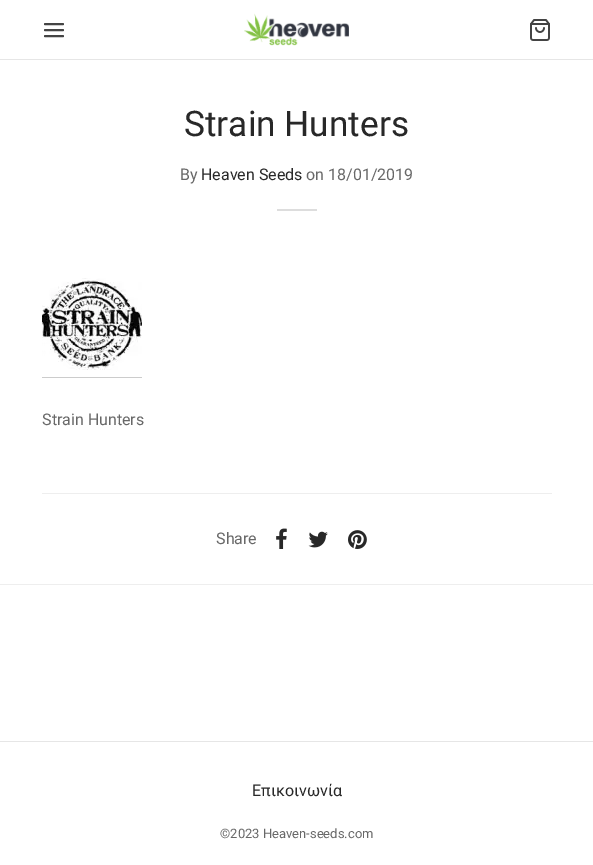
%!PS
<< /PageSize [593 865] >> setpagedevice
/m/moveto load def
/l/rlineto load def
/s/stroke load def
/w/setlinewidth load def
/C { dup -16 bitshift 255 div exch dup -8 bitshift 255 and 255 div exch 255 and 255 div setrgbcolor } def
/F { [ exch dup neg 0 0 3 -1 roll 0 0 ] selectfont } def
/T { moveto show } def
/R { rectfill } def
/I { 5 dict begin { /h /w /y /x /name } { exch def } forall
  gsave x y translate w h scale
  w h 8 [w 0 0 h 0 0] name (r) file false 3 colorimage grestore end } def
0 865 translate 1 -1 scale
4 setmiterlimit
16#FFFFFF C
0 0 593 865 R
16#444444 C
2 w
1 setlinecap
1 setlinejoin
45 30 m 18 0 l 45 24 m 18 0 l 45 36 m 18 0 l s
(1.rgb) 244 13 105 33 I
(2.rgb) 530 19 20 22 I
16#E6E6E6 C
0 59 593 1 R
/Roboto-Regular 35.25 F
16#282828 C
(Strain Hunters) 184 136 T
/Roboto-Regular 16 F
16#686868 C
(By) 180 180 T
16#282828 C
(Heaven Seeds) 201 180 T
16#686868 C
(on 18/01/2019) 306 180 T
16#DDDDDD C
277 209 40 2 R
16#CCCCCC C
42 377 100 1 R
(3.rgb) 42 278 100 92 I
16#686868 C
(Strain Hunters) 42 425 T
16#EEEEEE C
42 493 510 1 R
16#686868 C
(Share) 216 544 T
(4.rgb) 276 528 11 21 I
(5.rgb) 308 531 20 17 I
(6.rgb) 348 530 19 19 I
16#EEEEEE C
0 584 593 1 R
16#E6E6E6 C
0 741 593 1 R
16#282828 C
(Επικοινωνία) 252 796 T
/Roboto-Regular 13 F
16#686868 C
(©2023 Heaven-seeds.com) 220 838 T
showpage
